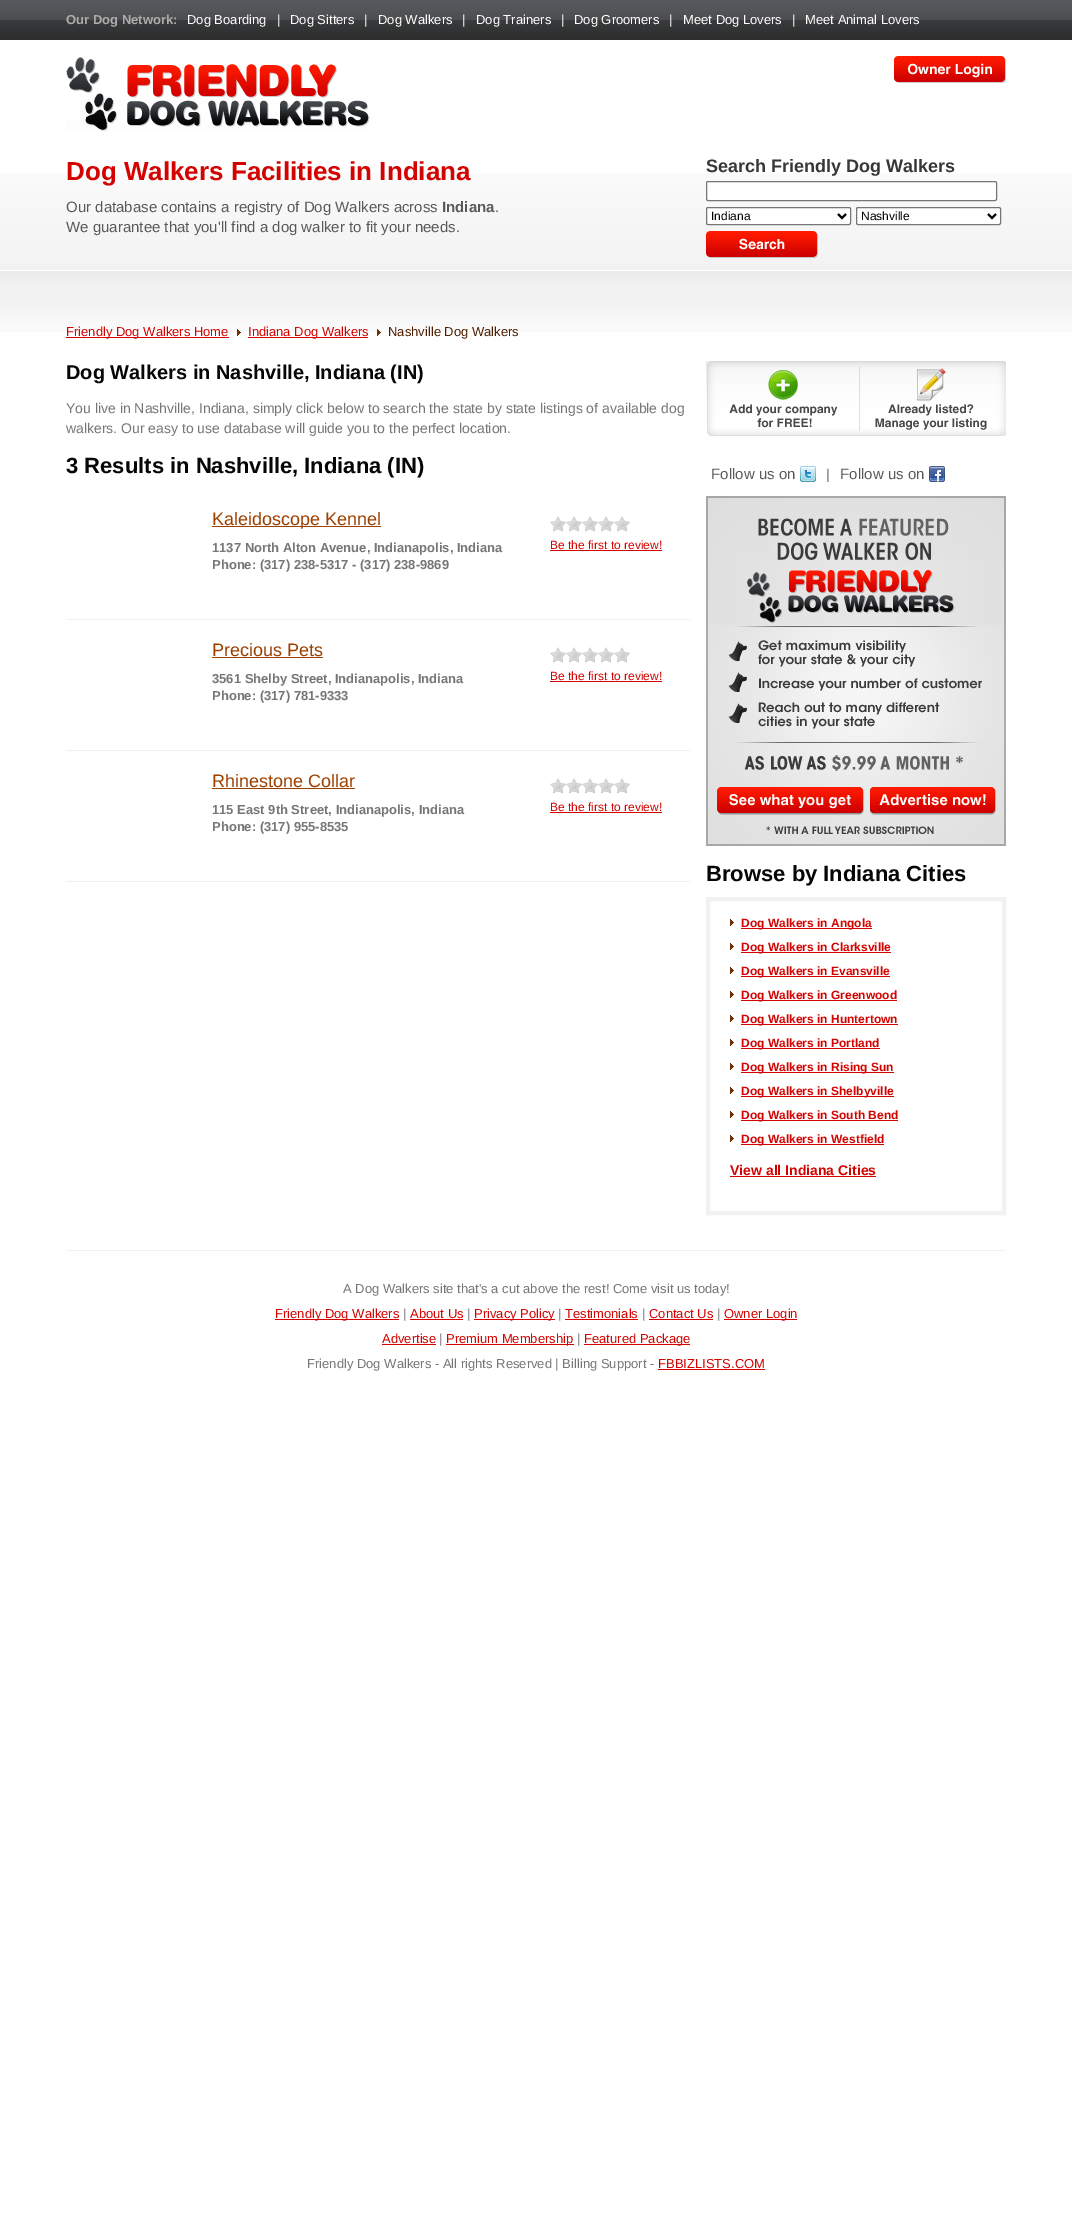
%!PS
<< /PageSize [1072 2225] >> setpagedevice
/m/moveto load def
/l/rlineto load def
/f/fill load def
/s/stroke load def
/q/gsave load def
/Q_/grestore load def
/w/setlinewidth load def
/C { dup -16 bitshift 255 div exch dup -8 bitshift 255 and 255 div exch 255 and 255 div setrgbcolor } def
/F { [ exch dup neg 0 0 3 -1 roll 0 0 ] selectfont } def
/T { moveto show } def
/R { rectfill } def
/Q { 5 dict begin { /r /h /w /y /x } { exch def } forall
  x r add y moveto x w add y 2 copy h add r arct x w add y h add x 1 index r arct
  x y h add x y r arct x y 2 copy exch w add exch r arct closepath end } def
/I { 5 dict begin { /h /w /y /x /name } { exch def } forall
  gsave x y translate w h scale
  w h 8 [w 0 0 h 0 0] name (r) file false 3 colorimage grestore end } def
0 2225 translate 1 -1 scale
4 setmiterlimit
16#FFFFFF C
0 0 1072 2225 R
(1.rgb) 0 173 1072 159 I
(2.rgb) 0 0 1072 40 I
/LiberationSans-Bold 13 F
16#ACACAC C
(Our Dog Network:) 66 24 T
/LiberationSans-Regular 13 F
16#FFFFFF C
(Dog Boarding) 187 24 T
(|) 277 24 T
(Dog Sitters) 290 24 T
(|) 364 24 T
(Dog Walkers) 378 24 T
(|) 462 24 T
(Dog Trainers) 476 24 T
(|) 561 24 T
(Dog Groomers) 574 24 T
(|) 669 24 T
(Meet Dog Lovers) 683 24 T
(|) 792 24 T
(Meet Animal Lovers) 805 24 T
(3.rgb) 66 56 304 75 I
(4.rgb) 894 56 112 27 I
/LiberationSans-Bold 26 F
16#D20300 C
(Dog Walkers Facilities in Indiana) 66 180 T
/LiberationSans-Regular 15 F
16#595959 C
(Our database contains a registry of Dog Walkers across) 66 212 T
/LiberationSans-Bold 15 F
(Indiana) 442 212 T
/LiberationSans-Regular 15 F
(.) 495 212 T
(We guarantee that you'll find a dog walker to fit your needs.) 66 232 T
/LiberationSans-Bold 18 F
16#363739 C
(Search Friendly Dog Walkers) 706 172 T
16#FFFFFF C
706.5 181.5 290 19 1.5 Q q f Q_
16#767676 C
s
16#FFFFFF C
706.5 207.5 144 17 1.5 Q q f Q_
16#767676 C
s
16#000000 C
2 w
838 214 m 4 4 l 4 -4 l s
/LiberationSans-Regular 12 F
(Indiana) 711 220 T
16#FFFFFF C
856.5 207.5 144 17 1.5 Q q f Q_
16#767676 C
1 w
s
16#000000 C
2 w
988 214 m 4 4 l 4 -4 l s
(Nashville) 861 220 T
(5.rgb) 706 231 112 27 I
16#D20300 C
66 337 163 1 R
/LiberationSans-Regular 13 F
(Friendly Dog Walkers Home) 66 336 T
(6.rgb) 237 329 4 7 I
248 337 120 1 R
(Indiana Dog Walkers) 248 336 T
(6.rgb) 377 329 4 7 I
16#501F00 C
(Nashville Dog Walkers) 388 336 T
/LiberationSans-Bold 20 F
16#060606 C
(Dog Walkers in Nashville, Indiana \(IN\)) 66 379 T
/LiberationSans-Regular 14 F
16#767676 C
(You live in Nashville, Indiana, simply click below to search the state by state listings of available dog) 66 413 T
(walkers. Our easy to use database will guide you to the perfect location.) 66 433 T
/LiberationSans-Bold 22 F
16#060606 C
(3 Results in Nashville, Indiana \(IN\)) 66 473 T
16#F1F1F1 C
66 619 625 1 R
16#9E4000 C
212 526 169 1 R
/LiberationSans-Regular 18 F
(Kaleidoscope Kennel) 212 525 T
/LiberationSans-Bold 13 F
16#767676 C
(1137 North Alton Avenue, Indianapolis, Indiana) 212 552 T
(Phone: \(317\) 238-5317 - \(317\) 238-9869) 212 569 T
(7.rgb) 550 516 80 16 I
/LiberationSans-Regular 12 F
16#D20300 C
(Be the first to review!) 550 549 T
550 550 112 1 R
16#F1F1F1 C
66 750 625 1 R
/LiberationSans-Regular 18 F
16#9E4000 C
(Precious Pets) 212 656 T
212 657 111 1 R
/LiberationSans-Bold 13 F
16#767676 C
(3561 Shelby Street, Indianapolis, Indiana) 212 683 T
(Phone: \(317\) 781-9333) 212 700 T
(7.rgb) 550 647 80 16 I
/LiberationSans-Regular 12 F
16#D20300 C
(Be the first to review!) 550 680 T
550 681 112 1 R
16#F1F1F1 C
66 881 625 1 R
/LiberationSans-Regular 18 F
16#9E4000 C
(Rhinestone Collar) 212 787 T
212 788 143 1 R
/LiberationSans-Bold 13 F
16#767676 C
(115 East 9th Street, Indianapolis, Indiana) 212 814 T
(Phone: \(317\) 955-8535) 212 831 T
(7.rgb) 550 778 80 16 I
/LiberationSans-Regular 12 F
16#D20300 C
(Be the first to review!) 550 811 T
550 812 112 1 R
(8.rgb) 706 361 154 75 I
(9.rgb) 860 361 146 75 I
/LiberationSans-Regular 15 F
16#595959 C
(Follow us on) 711 479 T
(10.rgb) 800 466 16 16 I
/LiberationSans-Regular 14 F
16#767676 C
(|) 826 479 T
/LiberationSans-Regular 15 F
16#595959 C
(Follow us on) 840 479 T
(11.rgb) 929 466 16 16 I
(12.rgb) 706 496 300 277 I
(13.rgb) 706 773 157 73 I
(14.rgb) 863 773 143 73 I
/LiberationSans-Bold 22 F
16#060606 C
(Browse by Indiana Cities) 706 881 T
16#F1F1F1 C
4 w
708 899 296 314 rectstroke
(15.rgb) 730 919 4 7 I
16#D20300 C
741 928 131 1 R
/LiberationSans-Bold 12 F
(Dog Walkers in Angola) 741 927 T
(15.rgb) 730 943 4 7 I
741 952 150 1 R
(Dog Walkers in Clarksville) 741 951 T
(15.rgb) 730 967 4 7 I
741 976 149 1 R
(Dog Walkers in Evansville) 741 975 T
(15.rgb) 730 991 4 7 I
741 1000 156 1 R
(Dog Walkers in Greenwood) 741 999 T
(15.rgb) 730 1015 4 7 I
741 1024 157 1 R
(Dog Walkers in Huntertown) 741 1023 T
(15.rgb) 730 1039 4 7 I
741 1048 139 1 R
(Dog Walkers in Portland) 741 1047 T
(15.rgb) 730 1063 4 7 I
741 1072 153 1 R
(Dog Walkers in Rising Sun) 741 1071 T
(15.rgb) 730 1087 4 7 I
741 1096 153 1 R
(Dog Walkers in Shelbyville) 741 1095 T
(15.rgb) 730 1111 4 7 I
741 1120 157 1 R
(Dog Walkers in South Bend) 741 1119 T
(15.rgb) 730 1135 4 7 I
741 1144 143 1 R
(Dog Walkers in Westfield) 741 1143 T
/LiberationSans-Bold 14 F
(View all Indiana Cities) 730 1175 T
730 1176 146 1 R
16#F1F1F1 C
66 1250 940 1 R
/LiberationSans-Regular 13 F
16#767676 C
(A Dog Walkers site that's a cut above the rest! Come visit us today!) 343 1293 T
16#D20300 C
275 1319 124 1 R
(Friendly Dog Walkers) 275 1318 T
16#767676 C
(|) 403 1318 T
16#D20300 C
(About Us) 410 1318 T
410 1319 53 1 R
16#767676 C
(|) 467 1318 T
16#D20300 C
474 1319 81 1 R
(Privacy Policy) 474 1318 T
16#767676 C
(|) 558 1318 T
16#D20300 C
(Testimonials) 565 1318 T
565 1319 73 1 R
16#767676 C
(|) 642 1318 T
16#D20300 C
(Contact Us) 649 1318 T
649 1319 64 1 R
16#767676 C
(|) 717 1318 T
16#D20300 C
724 1319 73 1 R
(Owner Login) 724 1318 T
(Advertise) 382 1343 T
382 1344 54 1 R
16#767676 C
(|) 439 1343 T
16#D20300 C
446 1344 128 1 R
(Premium Membership) 446 1343 T
16#767676 C
(|) 577 1343 T
16#D20300 C
584 1344 106 1 R
(Featured Package) 584 1343 T
16#767676 C
(Friendly Dog Walkers - All rights Reserved | Billing Support -) 307 1368 T
16#D20300 C
(FBBIZLISTS.COM) 658 1368 T
658 1369 107 1 R
showpage
